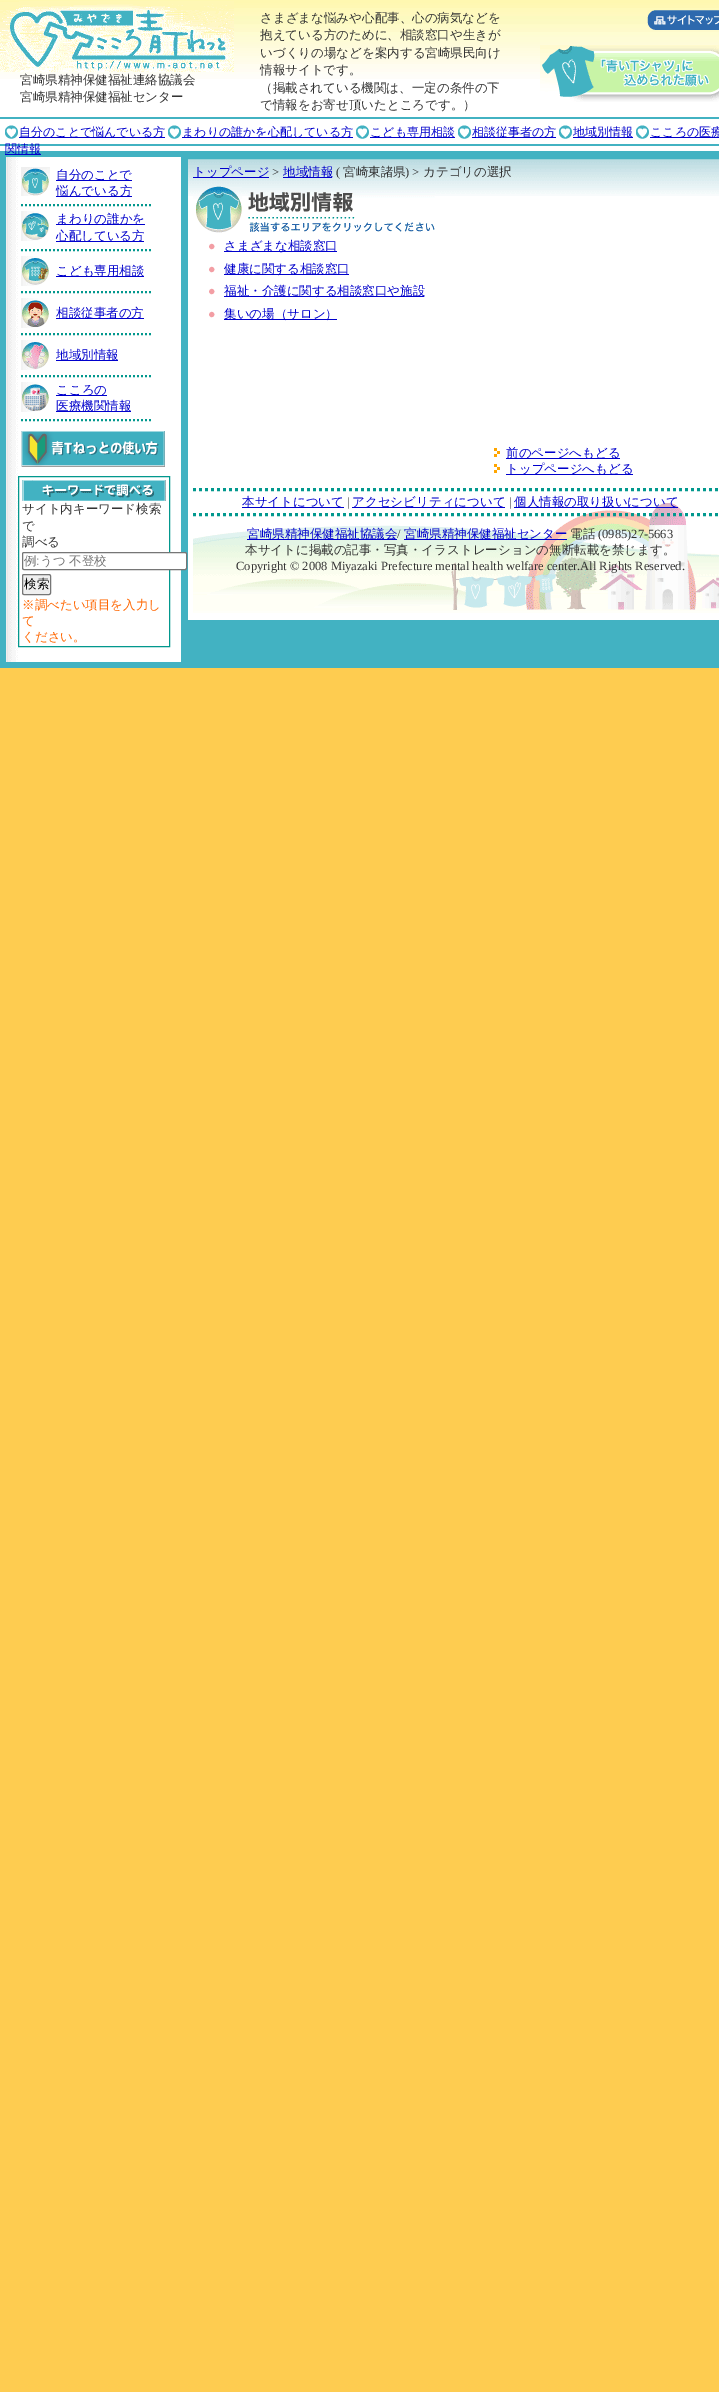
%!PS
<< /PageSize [719 2392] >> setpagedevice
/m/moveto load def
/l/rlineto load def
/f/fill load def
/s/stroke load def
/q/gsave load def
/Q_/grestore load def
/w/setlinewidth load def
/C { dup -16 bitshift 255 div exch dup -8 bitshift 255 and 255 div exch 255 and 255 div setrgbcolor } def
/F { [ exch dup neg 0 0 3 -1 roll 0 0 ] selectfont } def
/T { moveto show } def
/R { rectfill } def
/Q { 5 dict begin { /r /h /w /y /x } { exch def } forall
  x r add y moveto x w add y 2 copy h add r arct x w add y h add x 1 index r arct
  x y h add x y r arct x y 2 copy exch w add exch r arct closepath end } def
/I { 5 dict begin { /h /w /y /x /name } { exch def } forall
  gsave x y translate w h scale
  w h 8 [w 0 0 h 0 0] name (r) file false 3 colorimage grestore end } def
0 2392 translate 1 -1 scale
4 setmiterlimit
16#FECC50 C
0 0 719 2392 R
16#FFFFFF C
0 79 719 72 R
(1.rgb) 0 0 719 79 I
(2.rgb) 0 1 234 71 I
/WenQuanYiZenHei-Medium 12.5 F
16#333333 C
(宮崎県精神保健福祉連絡協議会) 20 84 T
(宮崎県精神保健福祉センター) 20 101 T
(さまざまな悩みや心配事、心の病気などを) 260 22 T
(抱えている方のために、相談窓口や生きが) 260 39 T
(いづくりの場などを案内する宮崎県民向け) 260 57 T
(情報サイトです。) 260 74 T
(（掲載されている機関は、一定の条件の下) 260 92 T
(で情報をお寄せ頂いたところです。）) 260 109 T
(3.rgb) 647 10 72 20 I
(4.rgb) 540 45 179 57 I
16#42B2C2 C
0 117 719 2 R
0 144 719 2 R
(5.rgb) 5 125 13 14 I
16#0000CC C
19 137 146 1 R
/WenQuanYiZenHei-Medium 12 F
(自分のことで悩んでいる方) 19 136 T
(5.rgb) 168 125 13 14 I
182 137 171 1 R
(まわりの誰かを心配している方) 182 136 T
(5.rgb) 356 125 13 14 I
370 137 85 1 R
(こども専用相談) 370 136 T
(5.rgb) 458 125 13 14 I
472 137 84 1 R
(相談従事者の方) 472 136 T
(5.rgb) 559 125 13 14 I
573 137 60 1 R
(地域別情報) 573 136 T
(5.rgb) 636 125 13 14 I
650 137 69 1 R
(こころの医療) 650 136 T
16#42B2C2 C
0 151 719 517 R
16#0000CC C
5 154 36 1 R
(関情報) 5 153 T
16#FFFFFF C
18 157 163 505 R
(6.rgb) 6 157 12 505 I
16#02988E C
2 w
[2 2] 0 setdash
21 205 m 130 0 l s
(7.rgb) 21 167 29 29 I
16#0000CC C
56 180 76 1 R
/WenQuanYiZenHei-Medium 12.5 F
(自分のことで) 56 179 T
56 196 76 1 R
(悩んでいる方) 56 195 T
16#02988E C
21 250 m 130 0 l s
(8.rgb) 21 211 28 30 I
16#0000CC C
56 224 89 1 R
(まわりの誰かを) 56 223 T
56 241 88 1 R
(心配している方) 56 240 T
16#02988E C
21 292 m 130 0 l s
(9.rgb) 21 256 28 30 I
16#0000CC C
56 276 88 1 R
(こども専用相談) 56 275 T
16#02988E C
21 334 m 130 0 l s
(10.rgb) 21 298 28 30 I
16#0000CC C
56 318 88 1 R
(相談従事者の方) 56 317 T
16#02988E C
21 376 m 130 0 l s
(11.rgb) 21 340 28 30 I
16#0000CC C
56 360 62 1 R
(地域別情報) 56 359 T
16#02988E C
21 420 m 130 0 l s
(12.rgb) 21 382 28 30 I
16#0000CC C
56 395 51 1 R
(こころの) 56 394 T
56 411 75 1 R
(医療機関情報) 56 410 T
(13.rgb) 21 431 144 36 I
16#02988E C
1 w
[] 0 setdash
18.5 476.5 151 170 rectstroke
(14.rgb) 22 480 144 21 I
16#333333 C
(サイト内キーワード検索) 22 513 T
(で) 22 530 T
(調べる) 22 546 T
16#FFFFFF C
22.5 552.5 164 17 1.5 Q q f Q_
16#767676 C
s
16#757575 C
(例) 24 565 T
/LiberationSans-Regular 12.5 F
(:) 36 565 T
/WenQuanYiZenHei-Medium 12.5 F
(うつ 不登校) 40 565 T
16#EFEFEF C
22.5 574.5 28 20 1.5 Q q f Q_
16#767676 C
s
16#000000 C
(検索) 24 588 T
16#FF6600 C
(※調べたい項目を入力し) 22 609 T
(て) 22 625 T
(ください。) 22 641 T
16#FFFFFF C
188 196 531 424 R
(15.rgb) 188 159 531 37 I
16#0000CC C
193 177 76 1 R
(トップページ) 193 176 T
/LiberationSerif-Regular 12.5 F
16#333333 C
(>) 272 176 T
16#0000CC C
283 177 49 1 R
/WenQuanYiZenHei-Medium 12.5 F
(地域情報) 283 176 T
/LiberationSerif-Regular 12.5 F
16#333333 C
(\() 336 176 T
/WenQuanYiZenHei-Medium 12.5 F
(宮崎東諸県) 343 176 T
/LiberationSerif-Regular 12.5 F
(\) >) 405 176 T
/WenQuanYiZenHei-Medium 12.5 F
(カテゴリの選択) 423 176 T
(16.rgb) 193 186 49 47 I
(17.rgb) 248 192 187 40 I
/LiberationSerif-Regular 12.5 F
16#F39EA4 C
(●) 208 250 T
16#0000CC C
224 251 113 1 R
/WenQuanYiZenHei-Medium 12.5 F
(さまざまな相談窓口) 224 250 T
/LiberationSerif-Regular 12.5 F
16#F39EA4 C
(●) 208 273 T
16#0000CC C
224 274 125 1 R
/WenQuanYiZenHei-Medium 12.5 F
(健康に関する相談窓口) 224 273 T
/LiberationSerif-Regular 12.5 F
16#F39EA4 C
(●) 208 295 T
16#0000CC C
224 296 200 1 R
/WenQuanYiZenHei-Medium 12.5 F
(福祉・介護に関する相談窓口や施設) 224 295 T
/LiberationSerif-Regular 12.5 F
16#F39EA4 C
(●) 208 318 T
16#0000CC C
224 319 113 1 R
/WenQuanYiZenHei-Medium 12.5 F
(集いの場（サロン）) 224 318 T
(18.rgb) 494 448 6 9 I
506 458 114 1 R
(前のページへもどる) 506 457 T
(18.rgb) 494 464 6 9 I
506 474 127 1 R
(トップページへもどる) 506 473 T
(19.rgb) 193 503 526 110 I
16#02988E C
3 w
[3 3] 0 setdash
193 489.5 m 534 0 l s
193 514.5 m 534 0 l s
16#0000CC C
242 507 102 1 R
(本サイトについて) 242 506 T
/LiberationSerif-Regular 12.5 F
16#333333 C
(|) 347 506 T
16#0000CC C
352 507 153 1 R
/WenQuanYiZenHei-Medium 12.5 F
(アクセシビリティについて) 352 506 T
/LiberationSerif-Regular 12.5 F
16#333333 C
(|) 509 506 T
16#0000CC C
514 507 164 1 R
/WenQuanYiZenHei-Medium 12.5 F
(個人情報の取り扱いについて) 514 506 T
247 539 150 1 R
(宮崎県精神保健福祉協議会) 247 538 T
/LiberationSerif-Regular 12.5 F
16#333333 C
(/) 397 538 T
16#0000CC C
404 539 163 1 R
/WenQuanYiZenHei-Medium 12.5 F
(宮崎県精神保健福祉センター) 404 538 T
16#333333 C
(電話) 570 538 T
/LiberationSerif-Regular 12.5 F
(\(0985\)27-5663) 598 538 T
/WenQuanYiZenHei-Medium 12.5 F
(本サイトに掲載の記事・写真・イラストレーションの無断転載を禁じます。) 245 554 T
/LiberationSerif-Regular 12.5 F
(Copyright © 2008 Miyazaki Prefecture mental health welfare center.All Rights Reserved.) 236 570 T
showpage
